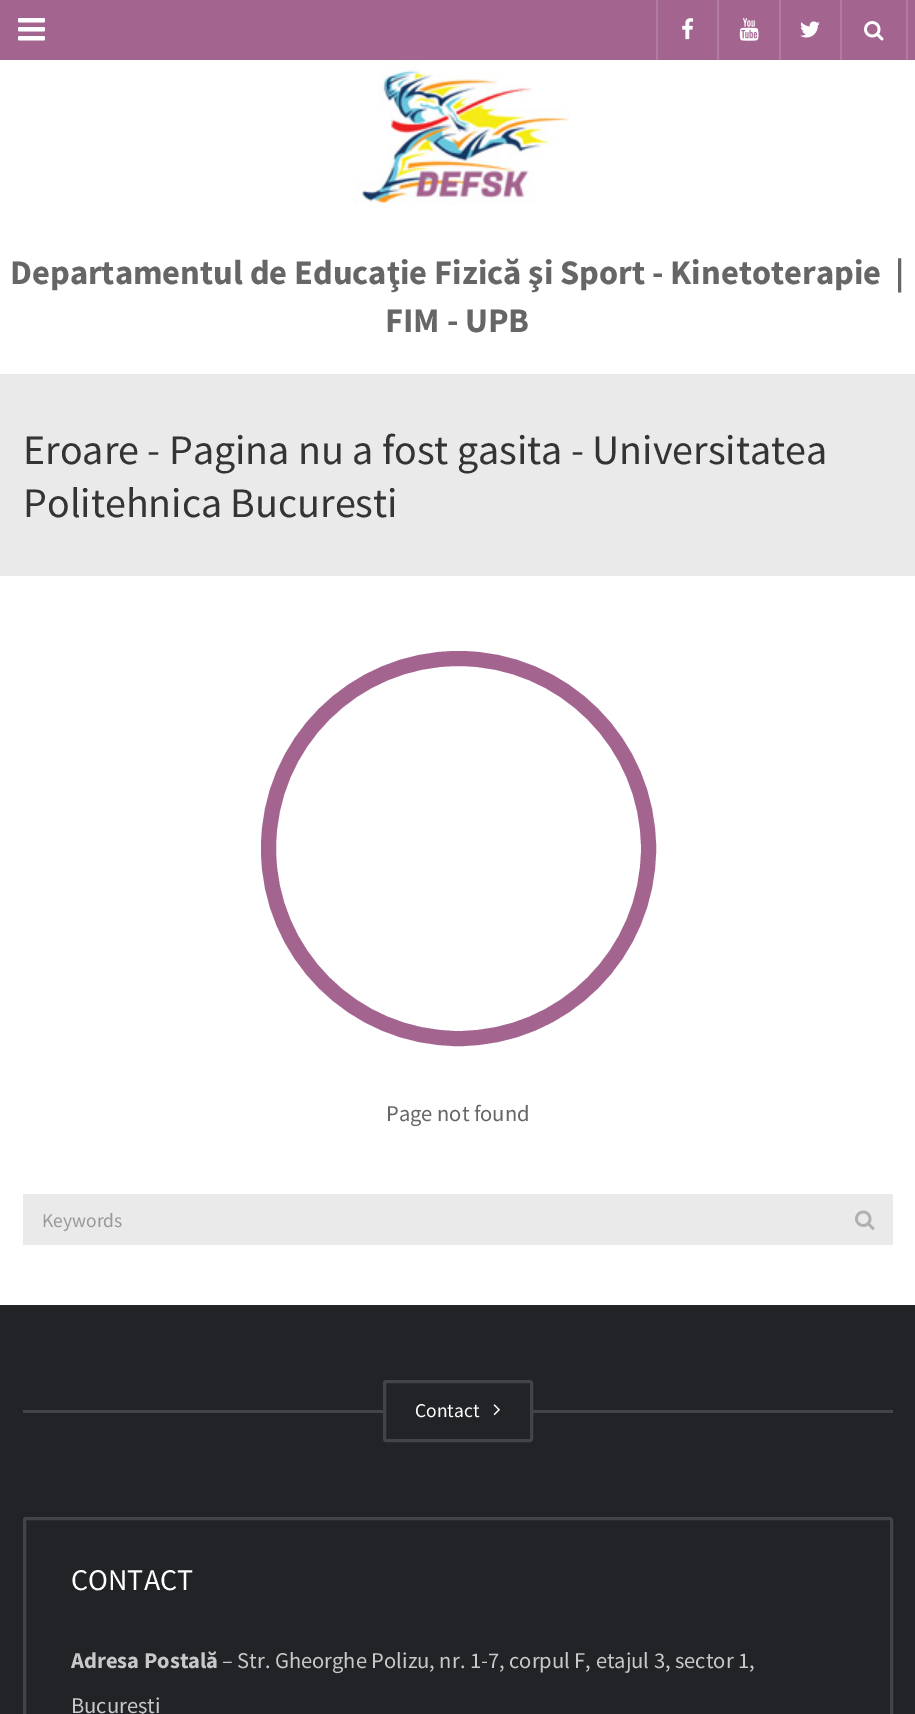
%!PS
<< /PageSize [915 1714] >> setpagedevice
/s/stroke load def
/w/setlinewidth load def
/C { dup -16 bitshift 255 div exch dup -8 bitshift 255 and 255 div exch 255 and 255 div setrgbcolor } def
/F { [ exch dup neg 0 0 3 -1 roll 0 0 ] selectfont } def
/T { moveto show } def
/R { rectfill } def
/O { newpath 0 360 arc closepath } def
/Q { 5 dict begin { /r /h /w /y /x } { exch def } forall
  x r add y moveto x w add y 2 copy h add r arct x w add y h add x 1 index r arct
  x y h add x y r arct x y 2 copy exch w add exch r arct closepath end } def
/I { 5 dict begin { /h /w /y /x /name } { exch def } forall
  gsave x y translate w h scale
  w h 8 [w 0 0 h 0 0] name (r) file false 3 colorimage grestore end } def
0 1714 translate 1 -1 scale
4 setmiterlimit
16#FFFFFF C
0 0 915 1714 R
16#A46490 C
0 0 915 60 R
(1.rgb) 18 18 27 23 I
16#B27BA1 C
656 0 2 60 R
(2.rgb) 682 18 12 22 I
717 0 2 60 R
(3.rgb) 739 18 20 23 I
779 0 2 60 R
(4.rgb) 800 21 20 17 I
906 0 2 60 R
840 0 2 60 R
(5.rgb) 864 21 20 20 I
(6.rgb) 354 62 216 144 I
/SourceSansPro-Bold 34.5 F
16#666666 C
(Departamentul de Educaţie Fizică şi Sport - Kinetoterapie  |) 10 284 T
(FIM - UPB) 385 332 T
16#EAEAEA C
0 374 915 202 R
/SourceSansPro-Regular 42 F
16#343434 C
(Eroare - Pagina nu a fost gasita - Universitatea) 23 464 T
(Politehnica Bucuresti) 23 517 T
16#A46490 C
15 w
458.5 848.5 190 O s
/SourceSansPro-Regular 22.5 F
16#666666 C
(Page not found) 386 1121 T
16#EAEAEA C
23 1194 870 51 R
/SourceSansPro-Regular 19.5 F
16#999999 C
(Keywords) 42 1227 T
(7.rgb) 855 1210 20 20 I
16#212327 C
0 1305 915 409 R
16#424447 C
23 1410 360 3 R
3 w
384.5 1381.5 147 59 1.5 Q s
16#FFFFFF C
(Contact) 415 1417 T
(8.rgb) 493 1404 7 12 I
16#424447 C
533 1410 360 3 R
24.5 1518.5 867 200 1.5 Q s
/SourceSansPro-Regular 30 F
16#FFFFFF C
(CONTACT) 71 1590 T
/SourceSansPro-Bold 22.5 F
16#C8C8C9 C
(Adresa Postală) 71 1668 T
/SourceSansPro-Regular 22.5 F
(– Str. Gheorghe Polizu, nr. 1-7, corpul F, etajul 3, sector 1,) 222 1668 T
(Bucureşti) 71 1713 T
showpage
